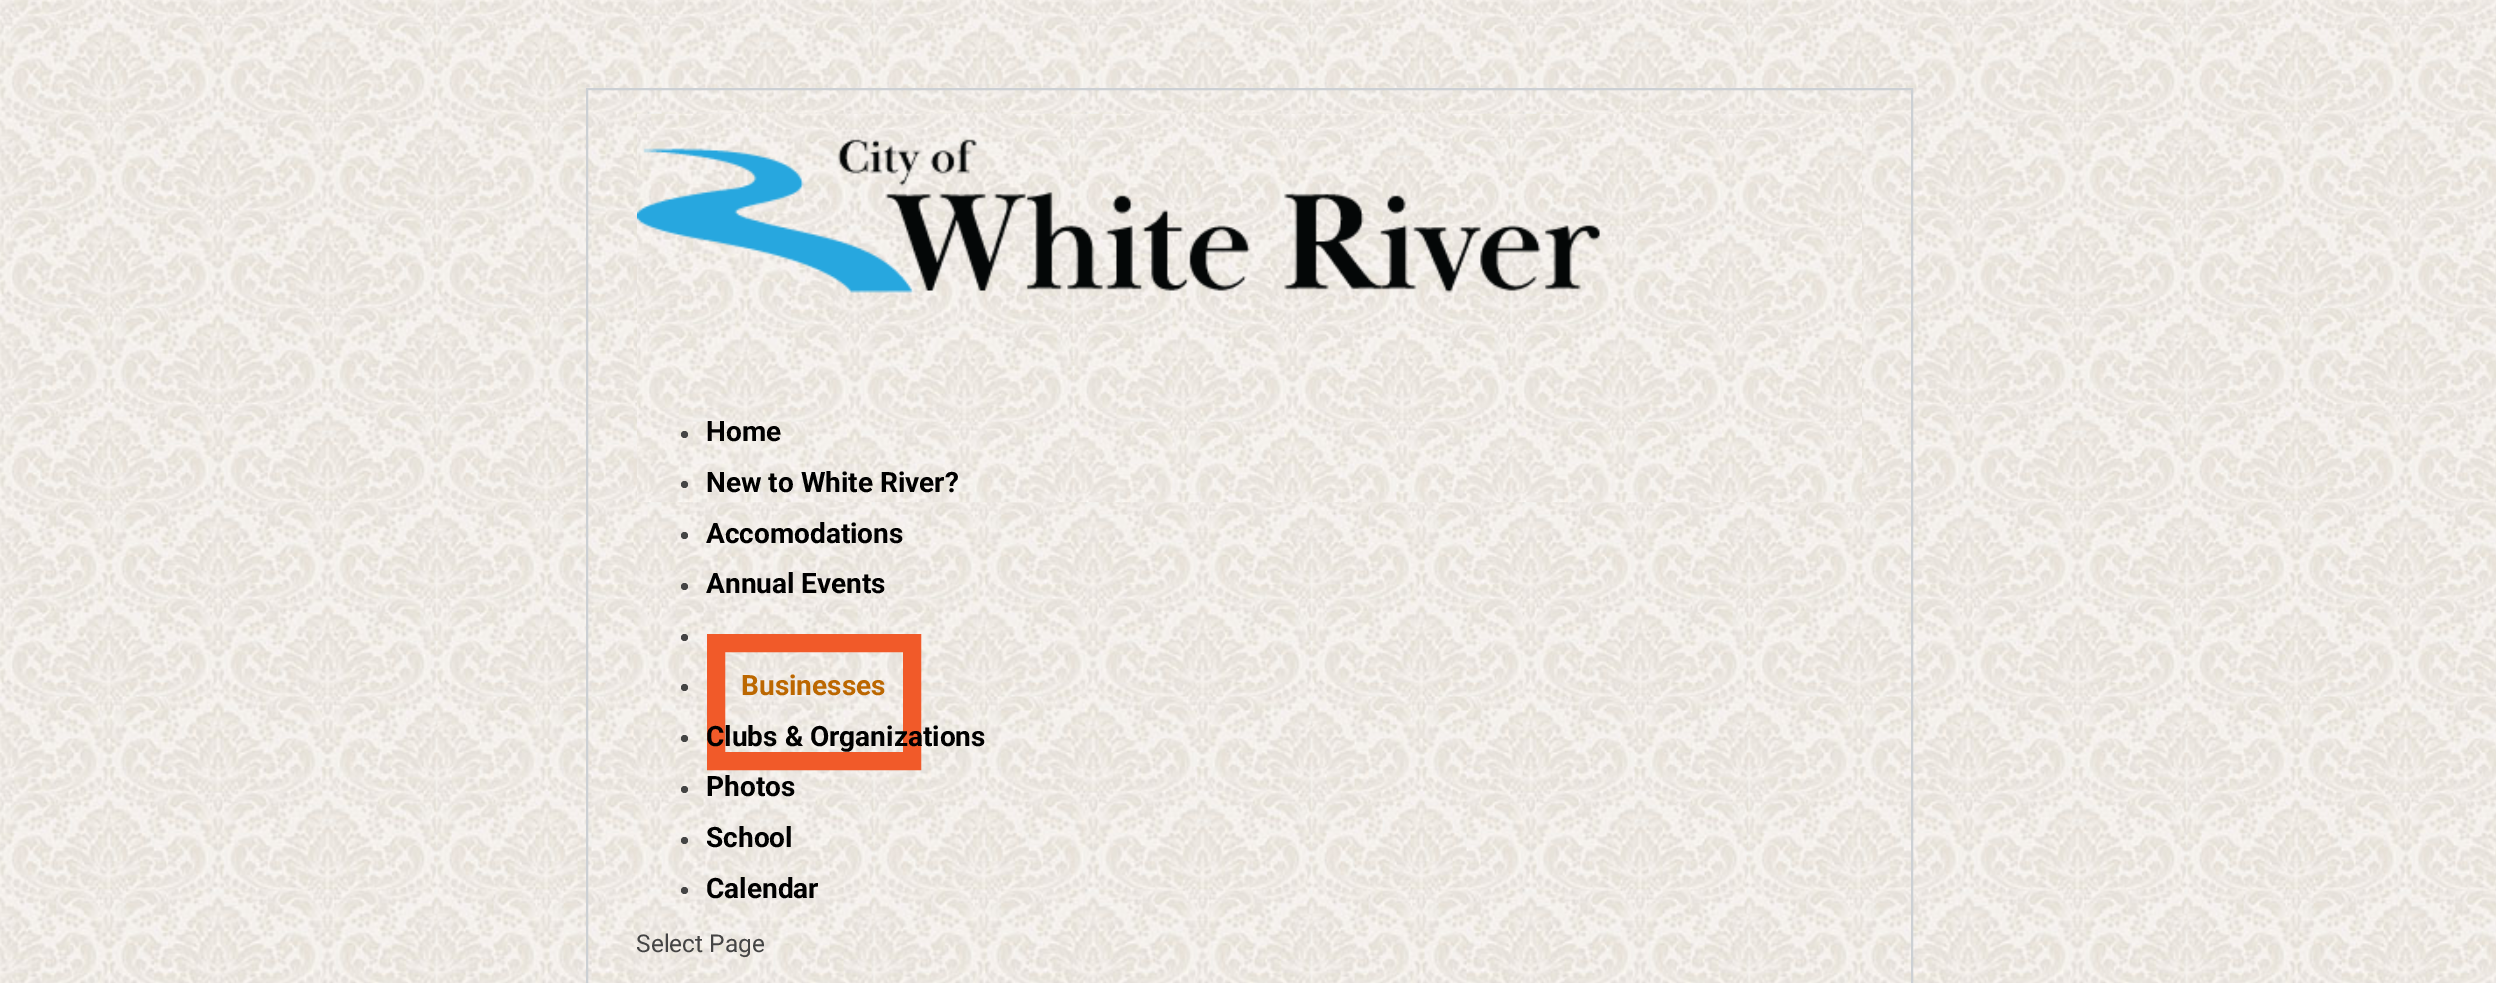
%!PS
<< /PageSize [2496 983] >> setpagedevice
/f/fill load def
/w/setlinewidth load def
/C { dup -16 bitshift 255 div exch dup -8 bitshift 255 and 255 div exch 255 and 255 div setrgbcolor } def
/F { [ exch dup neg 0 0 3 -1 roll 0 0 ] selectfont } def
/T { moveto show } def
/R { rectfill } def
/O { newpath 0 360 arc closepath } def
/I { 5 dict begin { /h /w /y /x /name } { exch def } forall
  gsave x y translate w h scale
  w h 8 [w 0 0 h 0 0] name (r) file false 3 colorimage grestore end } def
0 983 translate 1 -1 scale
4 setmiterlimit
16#FFFFFF C
0 0 2496 983 R
(1.rgb) 0 0 2496 983 I
16#CCD0D4 C
2 w
587 89 1325 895 rectstroke
(2.rgb) 637 113 1225 390 I
(3.rgb) 637 139 963 154 I
16#444444 C
684.5 434.5 3.5 O f
/Roboto-Bold 28 F
16#000000 C
(Home) 706 441 T
16#444444 C
684.5 484.5 3.5 O f
16#000000 C
(New to White River?) 706 492 T
16#444444 C
684.5 535.5 3.5 O f
16#000000 C
(Accomodations) 706 543 T
16#444444 C
684.5 586.5 3.5 O f
16#000000 C
(Annual Events) 706 593 T
16#444444 C
684.5 637.5 3.5 O f
684.5 687.5 3.5 O f
16#F15A29 C
18 w
716 643 196 118 rectstroke
16#BC6700 C
(Businesses) 741 695 T
16#444444 C
684.5 738.5 3.5 O f
16#000000 C
(Clubs & Organizations) 706 746 T
16#444444 C
684.5 789.5 3.5 O f
16#000000 C
(Photos) 706 796 T
16#444444 C
684.5 840.5 3.5 O f
16#000000 C
(School) 706 847 T
16#444444 C
684.5 890.5 3.5 O f
16#000000 C
(Calendar) 706 898 T
/Roboto-Regular 24.5 F
16#444444 C
(Select Page) 636 952 T
showpage
